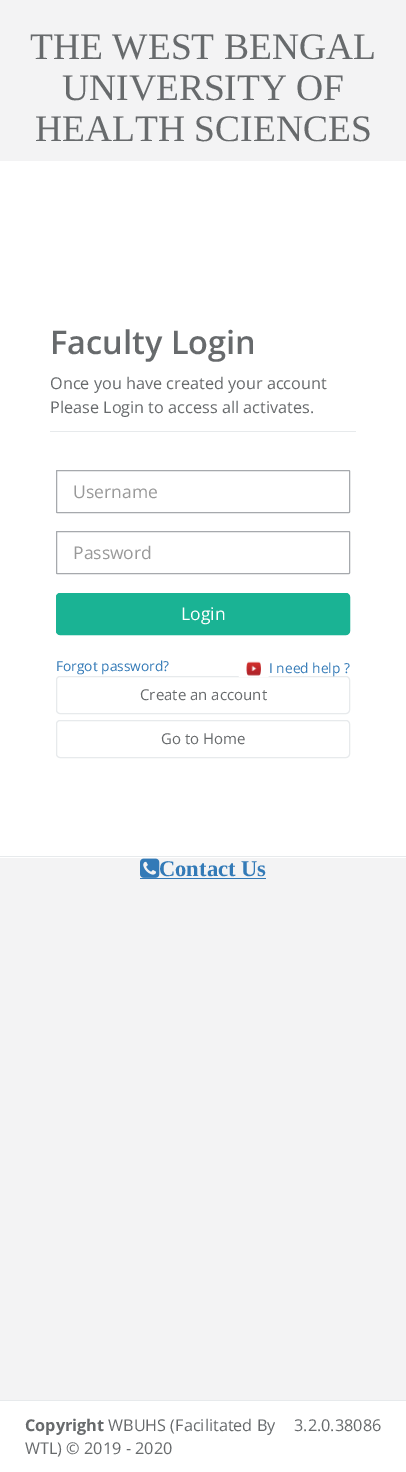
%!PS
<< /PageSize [406 1472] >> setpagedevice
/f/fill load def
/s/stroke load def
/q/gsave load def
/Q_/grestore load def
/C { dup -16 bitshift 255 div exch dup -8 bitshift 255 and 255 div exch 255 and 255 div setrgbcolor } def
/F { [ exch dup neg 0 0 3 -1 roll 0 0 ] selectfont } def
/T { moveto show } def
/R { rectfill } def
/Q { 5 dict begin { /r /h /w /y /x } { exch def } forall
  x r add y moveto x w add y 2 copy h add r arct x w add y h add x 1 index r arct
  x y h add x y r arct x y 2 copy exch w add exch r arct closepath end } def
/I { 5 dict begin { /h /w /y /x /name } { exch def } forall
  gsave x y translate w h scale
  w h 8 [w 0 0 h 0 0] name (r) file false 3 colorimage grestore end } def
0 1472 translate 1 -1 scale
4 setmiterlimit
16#F3F3F4 C
0 0 406 1472 R
/LiberationSerif-Regular 37.5 F
16#676A6C C
(THE WEST BENGAL) 30 59 T
(UNIVERSITY OF) 62 100 T
(HEALTH SCIENCES) 35 141 T
16#FFFFFF C
0 161 406 697 R
16#E7EAEC C
0 856 406 1 R
/OpenSans-SemiBold 32.5 F
16#676A6C C
(Faculty Login) 50 354 T
/OpenSans-Regular 16.25 F
(Once you have created your account) 50 389 T
(Please Login to access all activates.) 50 413 T
16#E7EAEC C
50 431 306 1 R
16#A6A9AD C
56.5 470.5 293 42 .5 Q s
/OpenSans-Regular 17.5 F
16#999999 C
(Username) 73 498 T
16#A6A9AD C
56.5 531.5 293 42 .5 Q s
16#999999 C
(Password) 73 559 T
16#1AB394 C
56.5 593.5 293 41 3.5 Q q f Q_
s
16#FFFFFF C
(Login) 181 620 T
/OpenSans-Regular 13.75 F
16#337AB7 C
(Forgot password?) 56 671 T
16#E7EAEC C
56.5 676.5 293 37 3.5 Q s
(1.rgb) 238 661 31 16 I
16#337AB7 C
(I need help ?) 269 673 T
/OpenSans-Regular 15 F
16#676A6C C
(Create an account) 140 700 T
16#E7EAEC C
56.5 720.5 293 37 3.5 Q s
16#676A6C C
(Go to Home) 161 744 T
(2.rgb) 140 858 20 20 I
/LiberationSerif-Bold 22.5 F
16#337AB7 C
(Contact Us) 159 876 T
140 878 126 1 R
16#FFFFFF C
0 1401 406 71 R
16#E7EAEC C
0 1400 406 1 R
/OpenSans-Bold 16.25 F
16#676A6C C
(Copyright) 25 1431 T
/OpenSans-Regular 16.25 F
(WBUHS \(Facilitated By) 108 1431 T
(WTL\) © 2019 - 2020) 25 1454 T
(3.2.0.38086) 294 1431 T
showpage
